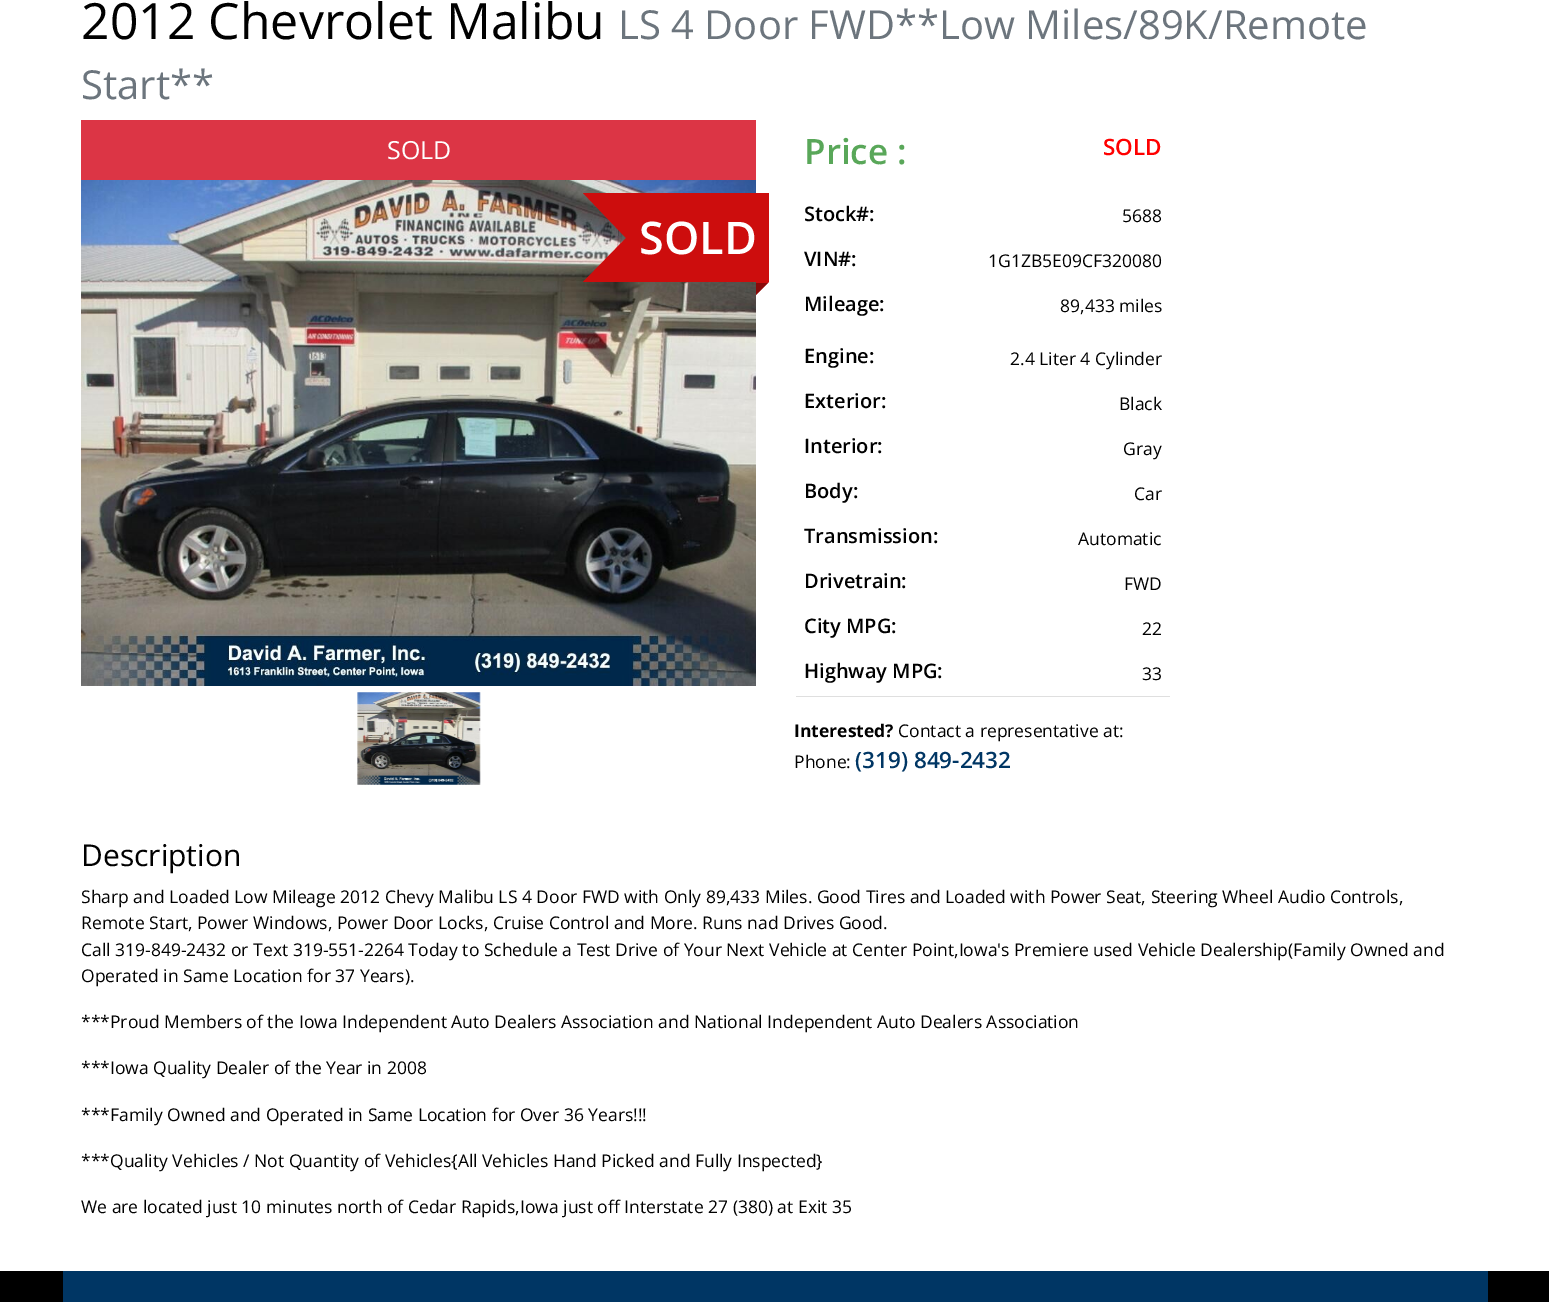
%!PS
<< /PageSize [1549 1302] /PageUsesTransparency true >> setpagedevice
/m/moveto load def
/l/rlineto load def
/z/closepath load def
/f/fill load def
/C { dup -16 bitshift 255 div exch dup -8 bitshift 255 and 255 div exch 255 and 255 div setrgbcolor } def
/F { [ exch dup neg 0 0 3 -1 roll 0 0 ] selectfont } def
/T { moveto show } def
/R { rectfill } def
/A { dup .setfillconstantalpha .setstrokeconstantalpha } def
/I { 5 dict begin { /h /w /y /x /name } { exch def } forall
  gsave x y translate w h scale
  w h 8 [w 0 0 h 0 0] name (r) file false 3 colorimage grestore end } def
0 .pushpdf14devicefilter
0 1302 translate 1 -1 scale
4 setmiterlimit
16#FFFFFF C
0 0 1549 1302 R
/OpenSans-Regular 50 F
16#000000 C
(2012 Chevrolet Malibu) 81 39 T
/OpenSans-Regular 40 F
16#6C757D C
(LS 4 Door FWD**Low Miles/89K/Remote) 618 39 T
(Start**) 81 99 T
16#DC3545 C
81 120 675 60 R
/OpenSans-Regular 25 F
16#FFFFFF C
(SOLD) 387 159 T
(1.rgb) 81 180 675 506 I
16#CD0D0D C
583 193 m 186 0 l 0 89 l -13 13 l 0 -13 l -173 0 l 43 -44 l z f
0.33 A
16#000000 C
768 283 m -12 12 l 0 -12 l z f
/OpenSans-SemiBold 45 F
1 A
16#FFFFFF C
(SOLD) 639 254 T
(2.rgb) 357 692 124 93 I
/OpenSans-SemiBold 35 F
16#59A759 C
(Price :) 804 164 T
/OpenSans-SemiBold 22.5 F
16#FF0000 C
(SOLD) 1103 155 T
/OpenSans-SemiBold 20 F
16#000000 C
(Stock#:) 804 221 T
/OpenSans-Regular 17.5 F
(5688) 1122 222 T
/OpenSans-SemiBold 20 F
(VIN#:) 804 266 T
/OpenSans-Regular 17.5 F
(1G1ZB5E09CF320080) 988 267 T
/OpenSans-SemiBold 20 F
(Mileage:) 804 311 T
/OpenSans-Regular 17.5 F
(89,433 miles) 1060 312 T
/OpenSans-SemiBold 20 F
(Engine:) 804 363 T
/OpenSans-Regular 17.5 F
(2.4 Liter 4 Cylinder) 1010 365 T
/OpenSans-SemiBold 20 F
(Exterior:) 804 408 T
/OpenSans-Regular 17.5 F
(Black) 1119 410 T
/OpenSans-SemiBold 20 F
(Interior:) 804 453 T
/OpenSans-Regular 17.5 F
(Gray) 1123 455 T
/OpenSans-SemiBold 20 F
(Body:) 804 498 T
/OpenSans-Regular 17.5 F
(Car) 1134 500 T
/OpenSans-SemiBold 20 F
(Transmission:) 804 543 T
/OpenSans-Regular 17.5 F
(Automatic) 1078 545 T
/OpenSans-SemiBold 20 F
(Drivetrain:) 804 588 T
/OpenSans-Regular 17.5 F
(FWD) 1124 590 T
/OpenSans-SemiBold 20 F
(City MPG:) 804 633 T
/OpenSans-Regular 17.5 F
(22) 1142 635 T
16#DFDFDF C
796 696 374 1 R
/OpenSans-SemiBold 20 F
16#000000 C
(Highway MPG:) 804 678 T
/OpenSans-Regular 17.5 F
(33) 1142 680 T
/OpenSans-Bold 17.5 F
(Interested?) 794 737 T
/OpenSans-Regular 17.5 F
(Contact a representative at:) 898 737 T
(Phone:) 794 768 T
/OpenSans-SemiBold 22.5 F
16#003664 C
(\(319\) 849-2432) 855 768 T
/OpenSans-Regular 30 F
16#000000 C
(Description) 81 866 T
/OpenSans-Regular 17.5 F
(Sharp and Loaded Low Mileage 2012 Chevy Malibu LS 4 Door FWD with Only 89,433 Miles. Good Tires and Loaded with Power Seat, Steering Wheel Audio Controls,) 81 903 T
(Remote Start, Power Windows, Power Door Locks, Cruise Control and More. Runs nad Drives Good.) 81 929 T
(Call 319-849-2432 or Text 319-551-2264 Today to Schedule a Test Drive of Your Next Vehicle at Center Point,Iowa's Premiere used Vehicle Dealership\(Family Owned and) 81 956 T
(Operated in Same Location for 37 Years\).) 81 982 T
(***Proud Members of the Iowa Independent Auto Dealers Association and National Independent Auto Dealers Association) 81 1028 T
(***Iowa Quality Dealer of the Year in 2008) 81 1074 T
(***Family Owned and Operated in Same Location for Over 36 Years!!!) 81 1121 T
(***Quality Vehicles / Not Quantity of Vehicles{All Vehicles Hand Picked and Fully Inspected}) 81 1167 T
(We are located just 10 minutes north of Cedar Rapids,Iowa just off Interstate 27 \(380\) at Exit 35) 81 1213 T
0 1271 1549 31 R
16#003664 C
63 1271 1425 31 R
.poppdf14devicefilter showpage
